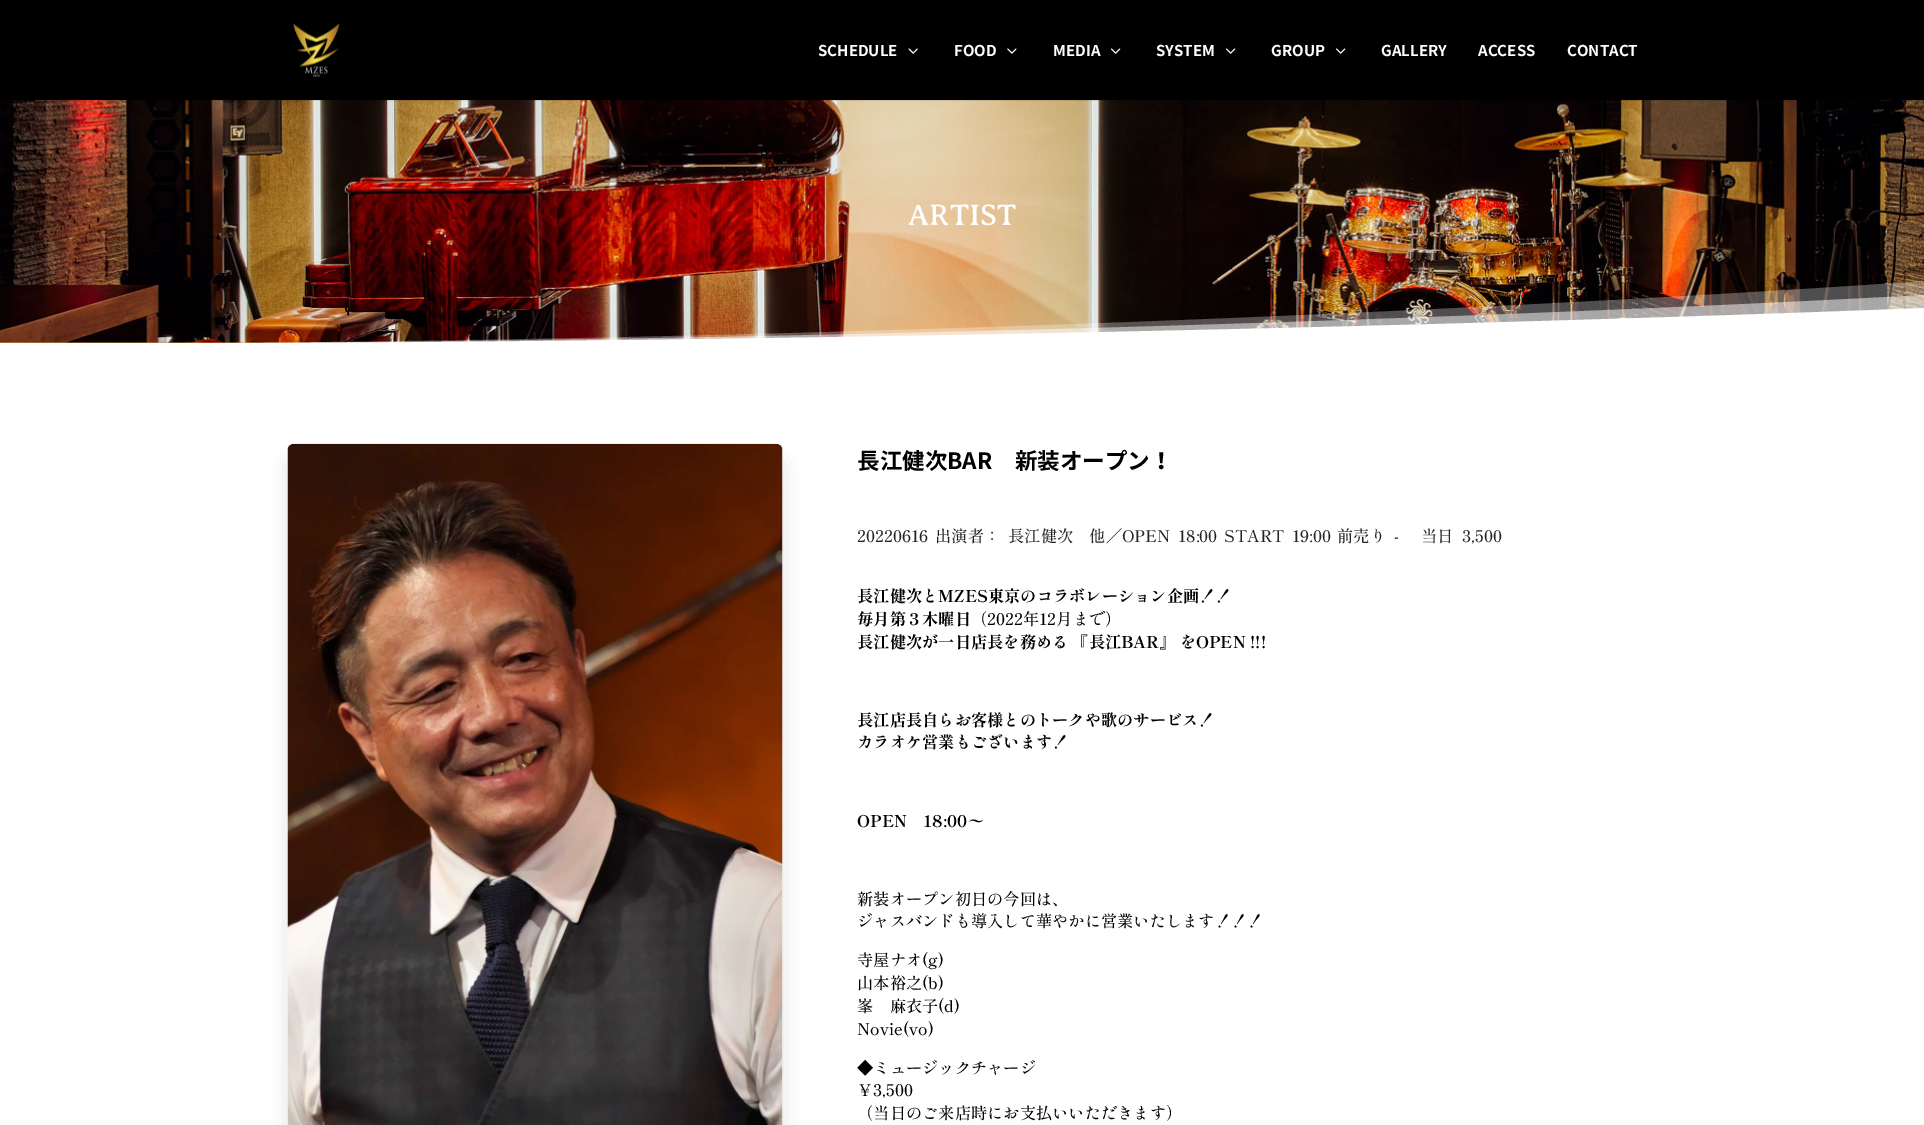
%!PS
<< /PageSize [1924 1125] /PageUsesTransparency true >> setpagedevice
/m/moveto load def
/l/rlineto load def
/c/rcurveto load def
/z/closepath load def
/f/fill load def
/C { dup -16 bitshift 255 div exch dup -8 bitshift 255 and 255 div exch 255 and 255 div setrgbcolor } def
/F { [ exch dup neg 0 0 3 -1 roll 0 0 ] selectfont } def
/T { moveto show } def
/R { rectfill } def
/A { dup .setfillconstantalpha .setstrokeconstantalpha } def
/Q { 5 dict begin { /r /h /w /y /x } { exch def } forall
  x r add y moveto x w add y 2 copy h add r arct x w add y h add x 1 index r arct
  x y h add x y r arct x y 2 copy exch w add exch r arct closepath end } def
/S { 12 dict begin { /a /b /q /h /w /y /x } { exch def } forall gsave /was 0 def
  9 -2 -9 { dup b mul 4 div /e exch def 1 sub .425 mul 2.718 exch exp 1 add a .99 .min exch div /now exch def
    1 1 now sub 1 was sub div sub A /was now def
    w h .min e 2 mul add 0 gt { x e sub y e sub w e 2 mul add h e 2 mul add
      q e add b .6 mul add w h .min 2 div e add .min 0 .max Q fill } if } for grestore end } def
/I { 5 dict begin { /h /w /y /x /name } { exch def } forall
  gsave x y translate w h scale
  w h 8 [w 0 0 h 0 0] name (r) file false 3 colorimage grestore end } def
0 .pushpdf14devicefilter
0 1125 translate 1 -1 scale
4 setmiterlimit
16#000000 C
0 0 1924 1125 R
16#CB9648 C
0 342 436 1 R
(5.rgb) 0 100 1924 243 I
0.1 A
16#000000 C
15 100 1909 1 R
1 A
(1.rgb) 293 23 47 55 I
/NotoSansJP-Bold 15 F
16#FFFFFF C
(SCHEDULE) 818 56 T
(2.rgb) 908 48 10 6 I
(FOOD) 954 56 T
(3.rgb) 1007 48 10 6 I
(MEDIA) 1053 56 T
(4.rgb) 1111 48 10 6 I
(SYSTEM) 1156 56 T
(4.rgb) 1226 48 10 6 I
(GROUP) 1271 56 T
(4.rgb) 1336 48 10 6 I
(GALLERY) 1381 56 T
(ACCESS) 1478 56 T
(CONTACT) 1567 56 T
0 343 1924 782 R
/AveriaSerifLibre-Regular 30 F
(ARTIST) 908 225 T
0.3 A
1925 344 m -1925 0 l 1063 0 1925 -63 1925 -63 c z f
0.5 A
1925 344 m -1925 0 l 1063 0 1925 -49 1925 -49 c z f
1 A
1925 344 m -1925 0 l 1063 0 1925 -36 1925 -36 c z f
16#000000 C
295 466 480 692 0 11 .3 S
(6.rgb) 287 443 496 682 I
/NotoSansJP-Bold 22.5 F
(長江健次BAR　新装オープン！) 857 469 T
/ShipporiMincho-Medium 16.25 F
16#242424 C
(20220616) 857 542 T
(出演者：) 935 542 T
(長江健次　他／OPEN) 1008 542 T
(18:00) 1178 542 T
(START) 1224 542 T
(19:00) 1292 542 T
(前売り) 1337 542 T
(-) 1394 542 T
(当日) 1421 542 T
(3,500) 1462 542 T
/ShipporiMincho-Bold 16.25 F
16#000000 C
(長江健次とMZES東京のコラボレーション企画！！) 857 602 T
(毎月第３木曜日) 857 625 T
/ShipporiMincho-Medium 16.25 F
(（2022年12月まで）) 971 625 T
/ShipporiMincho-Bold 16.25 F
(長江健次が一日店長を務める 『長江BAR』 をOPEN !!!) 857 648 T
(長江店長自らお客様とのトークや歌のサービス！) 857 726 T
(カラオケ営業もございます！) 857 748 T
(OPEN　18:00〜) 857 827 T
/ShipporiMincho-Medium 16.25 F
(新装オープン初日の今回は、) 857 905 T
(ジャスバンドも導入して華やかに営業いたします！！！) 857 927 T
(寺屋ナオ\(g\)) 857 966 T
(山本裕之\(b\)) 857 989 T
(峯　麻衣子\(d\)) 857 1012 T
(Novie\(vo\)) 857 1035 T
(◆ミュージックチャージ) 857 1074 T
(￥3,500) 857 1096 T
(（当日のご来店時にお支払いいただきます）) 857 1119 T
.poppdf14devicefilter showpage
